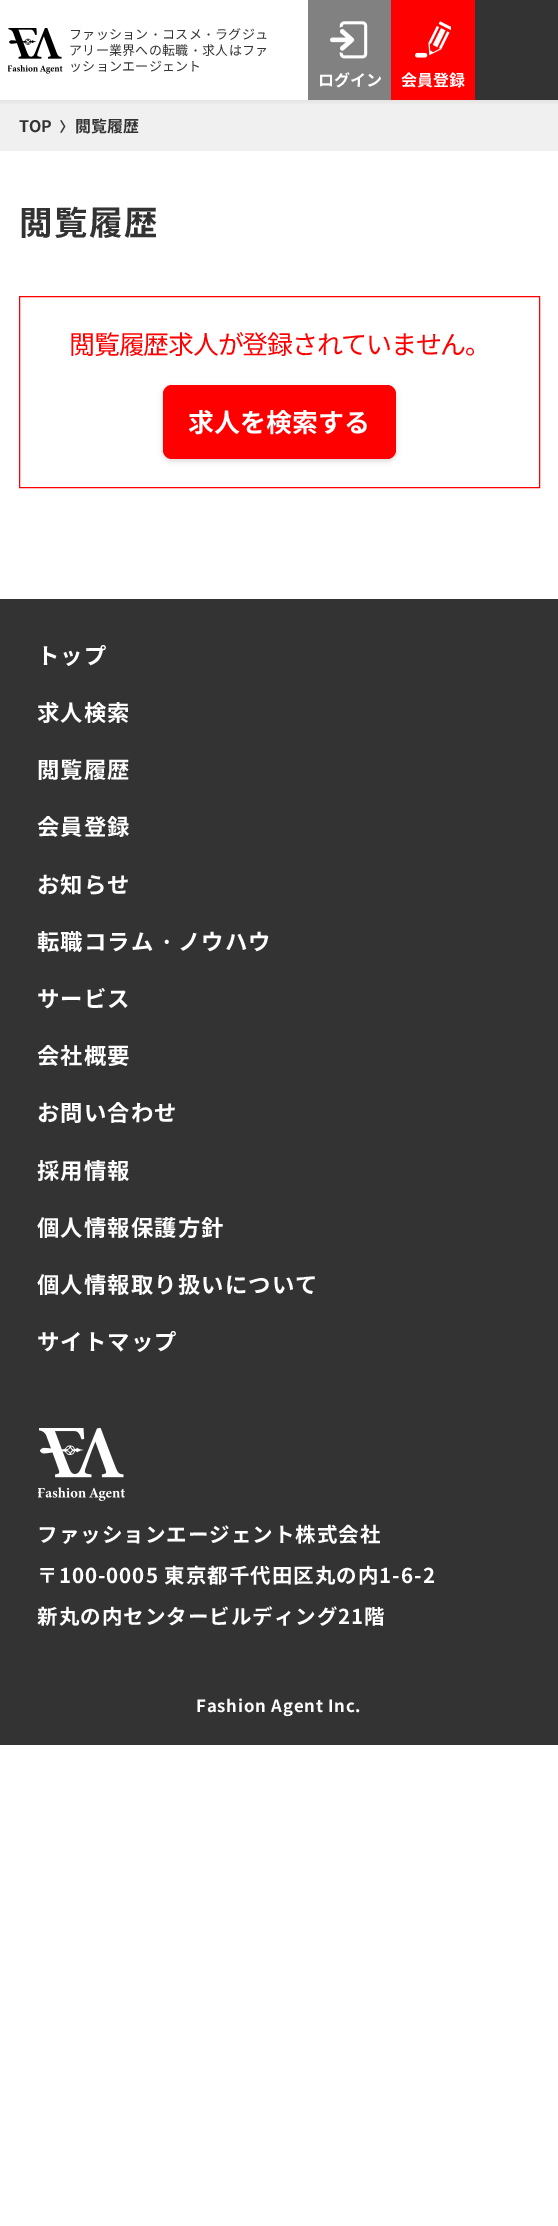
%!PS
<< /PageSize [558 2226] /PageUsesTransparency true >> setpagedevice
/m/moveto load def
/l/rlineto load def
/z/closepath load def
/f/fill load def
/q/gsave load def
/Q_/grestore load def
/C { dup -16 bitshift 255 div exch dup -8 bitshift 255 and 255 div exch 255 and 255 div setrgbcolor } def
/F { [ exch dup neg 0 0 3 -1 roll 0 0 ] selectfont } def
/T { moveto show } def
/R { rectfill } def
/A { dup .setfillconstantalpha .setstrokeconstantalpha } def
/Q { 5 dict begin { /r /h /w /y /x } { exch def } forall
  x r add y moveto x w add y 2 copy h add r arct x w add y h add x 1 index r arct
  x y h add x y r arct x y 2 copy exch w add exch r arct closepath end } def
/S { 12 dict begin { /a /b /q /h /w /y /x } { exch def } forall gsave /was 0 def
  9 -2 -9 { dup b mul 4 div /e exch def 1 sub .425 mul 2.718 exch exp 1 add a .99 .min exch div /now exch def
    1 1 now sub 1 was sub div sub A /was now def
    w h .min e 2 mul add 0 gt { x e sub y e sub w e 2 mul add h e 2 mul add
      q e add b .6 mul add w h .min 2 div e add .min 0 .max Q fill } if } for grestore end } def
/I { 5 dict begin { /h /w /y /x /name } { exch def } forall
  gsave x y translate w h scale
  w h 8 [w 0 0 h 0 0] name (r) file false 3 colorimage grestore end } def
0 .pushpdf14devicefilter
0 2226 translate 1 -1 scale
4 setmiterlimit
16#FFFFFF C
0 0 558 2226 R
(1.rgb) 8 28 55 46 I
/NotoSansJP-Regular 13 F
16#333333 C
69 39 m .25 0 (ファッション) ashow
/WenQuanYiZenHei-Medium 13 F
149 39 m .25 0 (・) ashow
/NotoSansJP-Regular 13 F
162 39 m .25 0 (コスメ) ashow
/WenQuanYiZenHei-Medium 13 F
202 39 m .25 0 (・) ashow
/NotoSansJP-Regular 13 F
215 39 m .25 0 (ラグジュ) ashow
69 55 m .25 0 (アリー業界への転職) ashow
/WenQuanYiZenHei-Medium 13 F
189 55 m .25 0 (・) ashow
/NotoSansJP-Regular 13 F
202 55 m .25 0 (求人はファ) ashow
69 71 m .25 0 (ッションエージェント) ashow
16#818181 C
308 0 83 100 R
(2.rgb) 330 21 38 38 I
/NotoSansJP-Bold 16 F
16#FFFFFF C
(ログイン) 318 86 T
16#FF0000 C
391 0 84 100 R
(3.rgb) 415 21 36 37 I
16#FFFFFF C
(会員登録) 401 86 T
16#333333 C
475 0 83 100 R
q 0 100 m 558 0 l 0 5 l -558 0 l z clip newpath
<< /ShadingType 2 /ColorSpace /DeviceRGB /Coords [279 100 279 105] /Extend [true true] /Function << /FunctionType 2 /Domain [0 1] /C0 [.894 .894 .894] /C1 [.933 .933 .933] /N 1 >> >> shfill Q_
16#F0F0F0 C
0 105 558 46 R
16#333333 C
(TOP) 19 132 T
(4.rgb) 60 120 6 13 I
(閲覧履歴) 75 132 T
/NotoSansJP-Bold 33.5 F
19 235 m 1.5 0 (閲覧履歴) ashow
16#FF0000 C
19.5 296.5 520 191 rectstroke
/NotoSansJP-Regular 26 F
69 354 m -1.25 0 (閲覧履歴求人が登録されていません。) ashow
16#000000 C
163 388 233 73 9 3 .16 S
16#FF0000 C
163 385 233 74 9 Q f
/NotoSansJP-Bold 26 F
16#FFFFFF C
(求人を検索する) 188 432 T
16#333333 C
0 599 558 1146 R
/NotoSansJP-Bold 22.4 F
16#FFFFFF C
37 664 m 1.1 0 (トップ) ashow
37 721 m 1.1 0 (求人検索) ashow
37 778 m 1.1 0 (閲覧履歴) ashow
37 835 m 1.1 0 (会員登録) ashow
37 893 m 1.1 0 (お知らせ) ashow
37 950 m 1.1 0 (転職コラム) ashow
/WenQuanYiZenHei-Bold 22.4 F
155 950 m 1.1 0 (・) ashow
/NotoSansJP-Bold 22.4 F
178 950 m 1.1 0 (ノウハウ) ashow
37 1007 m 1.1 0 (サービス) ashow
37 1064 m 1.1 0 (会社概要) ashow
37 1121 m 1.1 0 (お問い合わせ) ashow
37 1179 m 1.1 0 (採用情報) ashow
37 1236 m 1.1 0 (個人情報保護方針) ashow
37 1293 m 1.1 0 (個人情報取り扱いについて) ashow
37 1350 m 1.1 0 (サイトマップ) ashow
(5.rgb) 38 1428 87 73 I
/NotoSansJP-Bold 20.5 F
37 1542 m 1 0 (ファッションエージェント株式会社) ashow
37 1583 m 1 0 (〒100-0005 東京都千代田区丸の内1-6-2) ashow
37 1624 m 1 0 (新丸の内センタービルディング21階) ashow
/NotoSansJP-Bold 16.75 F
196 1712 m .8 0 (Fashion Agent Inc.) ashow
.poppdf14devicefilter showpage
